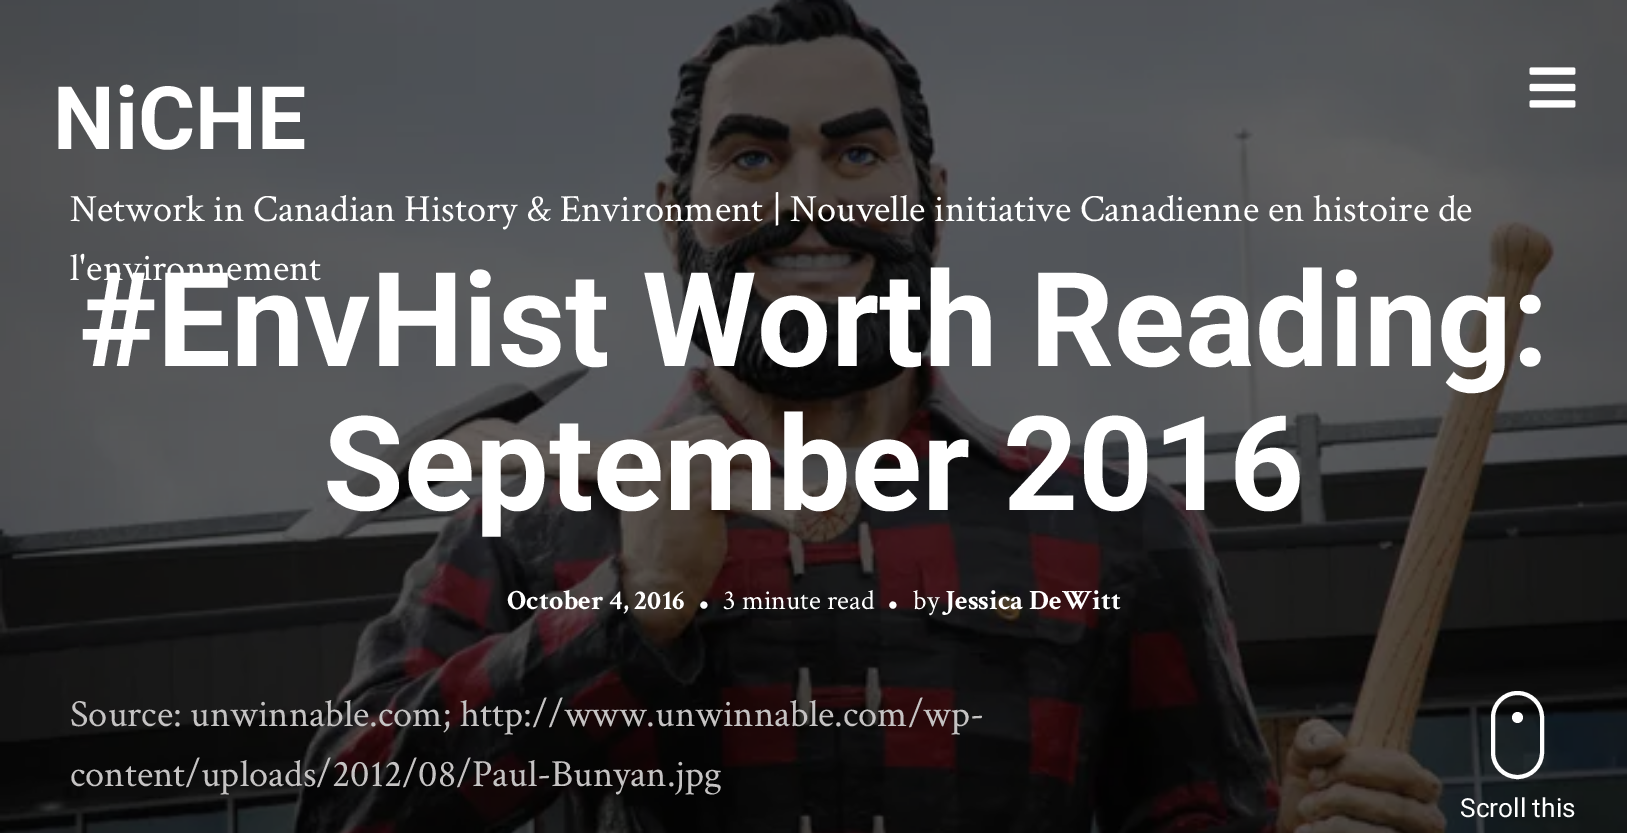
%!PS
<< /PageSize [1627 833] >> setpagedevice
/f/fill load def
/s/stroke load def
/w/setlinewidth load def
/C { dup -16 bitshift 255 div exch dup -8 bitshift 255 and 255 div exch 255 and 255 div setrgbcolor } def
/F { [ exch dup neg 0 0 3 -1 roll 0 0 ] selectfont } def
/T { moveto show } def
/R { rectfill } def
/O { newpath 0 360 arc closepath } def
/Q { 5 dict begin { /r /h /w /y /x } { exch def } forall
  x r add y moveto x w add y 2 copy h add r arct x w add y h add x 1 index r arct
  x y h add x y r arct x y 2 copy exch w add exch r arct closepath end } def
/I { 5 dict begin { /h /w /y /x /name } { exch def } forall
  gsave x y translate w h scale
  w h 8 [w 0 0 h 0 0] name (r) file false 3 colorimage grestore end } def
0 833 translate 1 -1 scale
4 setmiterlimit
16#000000 C
0 0 1627 833 R
(2.rgb) 0 0 1627 833 I
/Roboto-Bold 87.5 F
16#FFFFFF C
(NiCHE) 53 149 T
/CrimsonText-Regular 38.5 F
(Network in Canadian History & Environment | Nouvelle initiative Canadienne en histoire de) 70 221 T
/Roboto-Bold 131.25 F
(#EnvHist Worth Reading:) 79 366 T
/CrimsonText-Regular 38.5 F
(l'environnement) 70 280 T
(1.rgb) 1529 67 47 41 I
/Roboto-Bold 131.25 F
(September 2016) 323 510 T
/CrimsonText-Bold 28 F
(October 4, 2016) 507 609 T
/CrimsonText-Regular 35 F
(•) 697 614 T
/CrimsonText-Regular 28 F
(3 minute read) 723 609 T
/CrimsonText-Regular 35 F
(•) 886 614 T
/CrimsonText-Regular 28 F
(by) 913 609 T
/CrimsonText-Bold 28 F
(Jessica DeWitt) 945 609 T
/CrimsonText-Regular 38.5 F
16#C5C3C3 C
(Source: unwinnable.com; http://www.unwinnable.com/wp-) 70 726 T
(content/uploads/2012/08/Paul-Bunyan.jpg) 70 786 T
16#FFFFFF C
4 w
1493 693 49 84 24.5 Q s
1517.5 717.5 5.5 O f
/Roboto-Regular 26.25 F
(Scroll this) 1460 817 T
showpage
